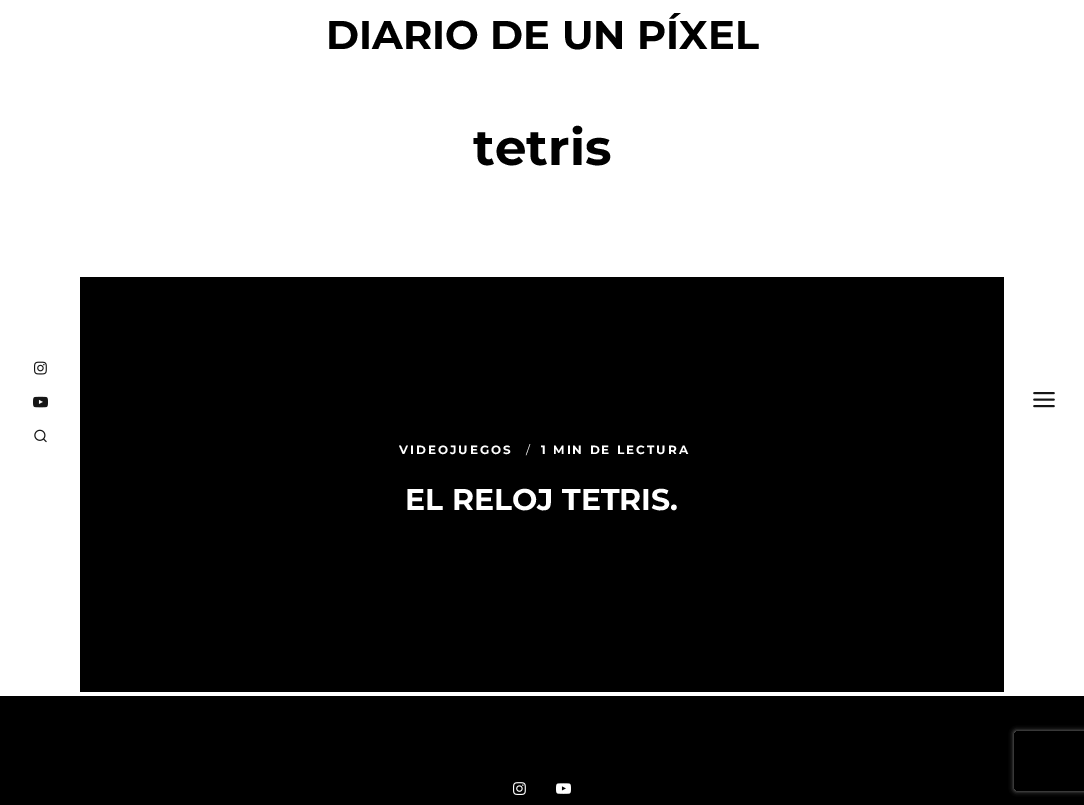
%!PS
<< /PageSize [1084 805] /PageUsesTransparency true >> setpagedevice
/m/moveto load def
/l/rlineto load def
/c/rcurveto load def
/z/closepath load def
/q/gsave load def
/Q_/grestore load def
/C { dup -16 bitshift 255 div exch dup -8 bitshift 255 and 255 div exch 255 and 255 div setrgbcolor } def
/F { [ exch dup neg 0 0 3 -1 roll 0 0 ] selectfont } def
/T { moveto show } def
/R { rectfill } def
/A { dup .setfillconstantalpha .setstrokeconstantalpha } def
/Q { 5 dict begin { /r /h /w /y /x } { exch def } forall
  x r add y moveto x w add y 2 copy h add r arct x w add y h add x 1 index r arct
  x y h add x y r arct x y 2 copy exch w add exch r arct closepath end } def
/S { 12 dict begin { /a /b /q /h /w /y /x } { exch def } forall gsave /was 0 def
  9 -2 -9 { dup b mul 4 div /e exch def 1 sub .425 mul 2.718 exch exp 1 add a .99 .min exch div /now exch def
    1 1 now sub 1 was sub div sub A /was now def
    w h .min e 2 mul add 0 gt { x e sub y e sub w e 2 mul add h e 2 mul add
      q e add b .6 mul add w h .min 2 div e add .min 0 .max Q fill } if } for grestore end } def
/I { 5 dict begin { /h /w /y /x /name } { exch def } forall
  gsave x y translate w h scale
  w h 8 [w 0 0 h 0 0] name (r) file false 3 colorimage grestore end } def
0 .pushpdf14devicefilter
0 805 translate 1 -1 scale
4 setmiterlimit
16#FFFFFF C
0 0 1084 805 R
/Montserrat-Bold 40 F
16#000000 C
(DIARIO DE UN PÍXEL) 326 49 T
(1.rgb) 34 361 13 14 I
(2.rgb) 33 396 15 12 I
(3.rgb) 34 429 13 14 I
/Montserrat-Bold 50 F
(tetris) 473 165 T
80 277 924 415 R
/Montserrat-Bold 12 F
16#FFFFFF C
399 454 m 2 0 (VIDEOJUEGOS) ashow
/Montserrat-Regular 12 F
526 454 m 2 0 (/) ashow
/Montserrat-Bold 12 F
541 454 m 2 0 (1 MIN DE LECTURA) ashow
/Montserrat-Bold 30 F
(EL RELOJ TETRIS.) 405 510 T
(4.rgb) 1033 392 22 16 I
16#000000 C
0 696 1084 109 R
(5.rgb) 513 782 13 13 I
(6.rgb) 556 783 15 11 I
q
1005 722 m 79 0 l 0 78 l -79 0 l z 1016 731 m 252 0 l 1 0 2 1 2 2 c 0 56 l 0 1 -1 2 -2 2 c -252 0 l -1 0 -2 -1 -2 -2 c 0 -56 l 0 -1 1 -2 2 -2 c z eoclip newpath
16#808080 C
1014 731 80 60 2 2.5 1 S
Q_
.poppdf14devicefilter showpage
